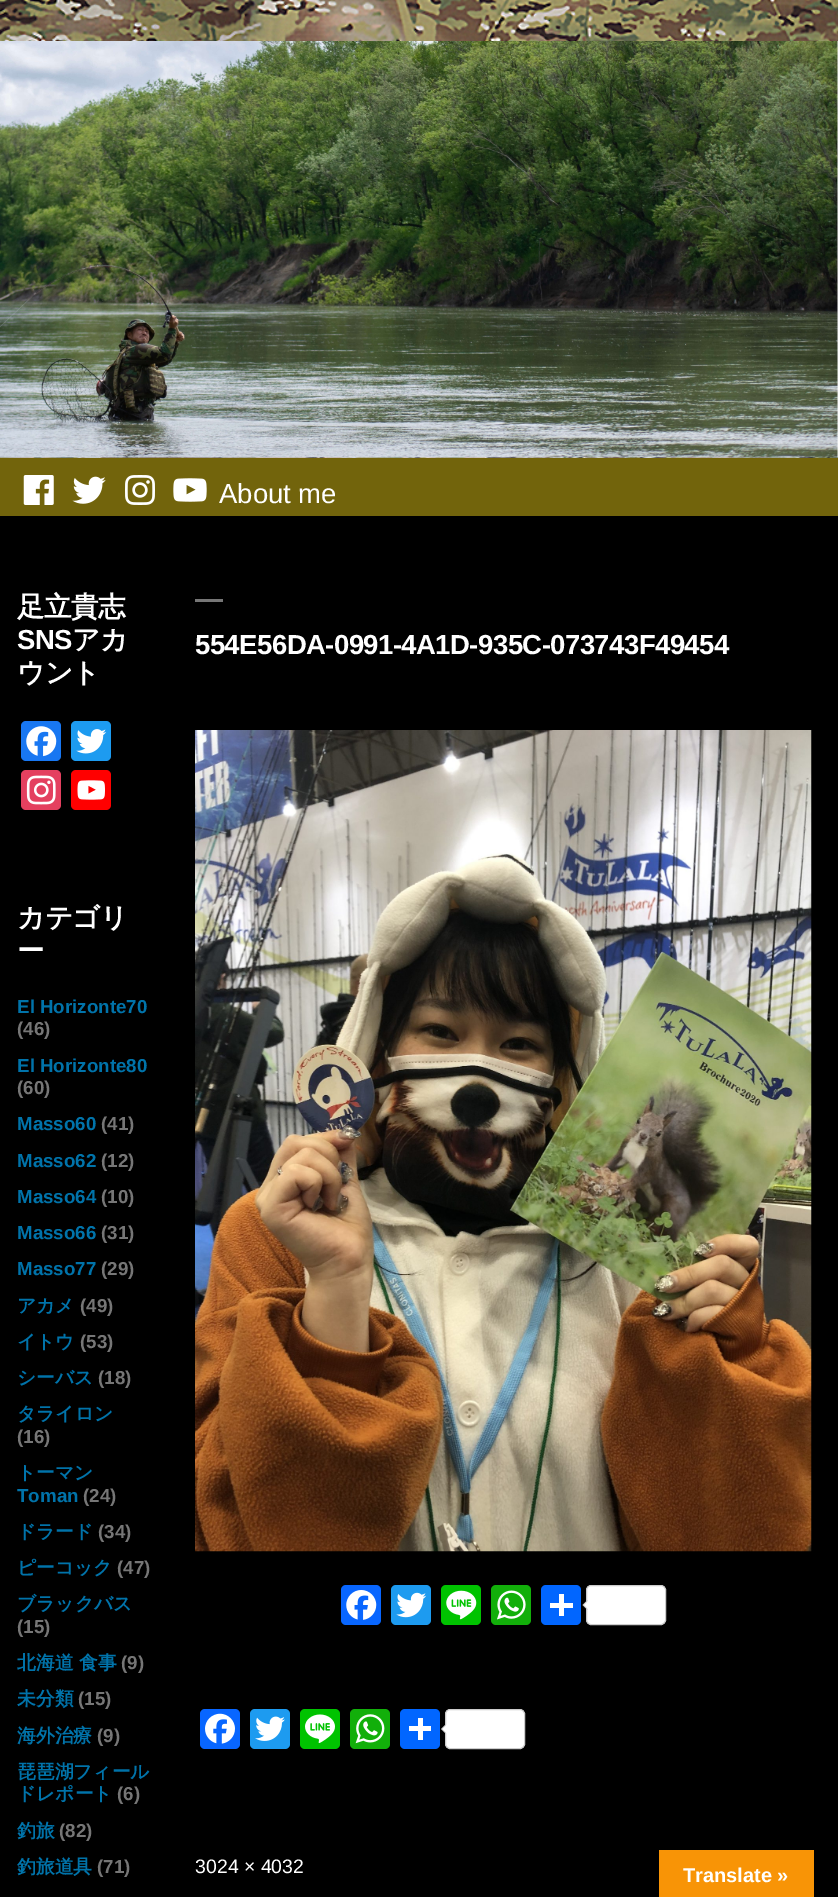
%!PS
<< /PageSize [838 1897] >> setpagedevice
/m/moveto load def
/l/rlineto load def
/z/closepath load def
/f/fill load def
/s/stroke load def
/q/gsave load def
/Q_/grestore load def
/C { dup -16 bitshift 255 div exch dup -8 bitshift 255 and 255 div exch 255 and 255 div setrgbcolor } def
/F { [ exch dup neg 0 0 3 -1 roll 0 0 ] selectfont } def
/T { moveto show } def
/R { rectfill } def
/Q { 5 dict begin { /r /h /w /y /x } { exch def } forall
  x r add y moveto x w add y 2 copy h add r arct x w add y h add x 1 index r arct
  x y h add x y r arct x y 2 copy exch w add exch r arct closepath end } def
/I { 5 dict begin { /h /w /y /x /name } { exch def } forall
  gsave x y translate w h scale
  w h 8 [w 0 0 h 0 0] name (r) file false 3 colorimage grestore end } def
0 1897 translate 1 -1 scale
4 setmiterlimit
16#FFFFFF C
0 0 838 1897 R
(1.rgb) 0 0 838 458 I
(2.rgb) 0 41 838 417 I
16#72640C C
0 458 838 58 R
(3.rgb) 23 475 31 30 I
(4.rgb) 72 476 34 28 I
(5.rgb) 125 475 30 30 I
(6.rgb) 173 478 34 24 I
/LiberationSans-Regular 27.5 F
16#FFFFFF C
(About me) 219 503 T
16#000000 C
0 516 838 1381 R
/WenQuanYiZenHei-Bold 27.5 F
16#FFFFFF C
17 616 m -.55 0 (足立貴志) ashow
/LiberationSans-Bold 27.5 F
17 649 m -.55 0 (SNS) ashow
/WenQuanYiZenHei-Bold 27.5 F
72 649 m -.55 0 (アカ) ashow
17 682 m -.55 0 (ウント) ashow
16#1877F2 C
21 721 40 40 5 Q f
(7.rgb) 26 726 31 31 I
16#1D9BF0 C
71 721 40 40 5 Q f
(8.rgb) 76 729 31 25 I
16#E4405F C
21 770 40 40 5 Q f
(9.rgb) 26 775 30 30 I
16#FF0000 C
71 770 40 40 5 Q f
(10.rgb) 77 780 28 20 I
16#FFFFFF C
17 927 m -.55 0 (カテゴリ) ashow
17 960 m -.55 0 (ー) ashow
/LiberationSans-Bold 18.75 F
16#0073AA C
(El Horizonte70) 17 1013 T
16#767676 C
(\(46\)) 17 1035 T
16#0073AA C
(El Horizonte80) 17 1072 T
16#767676 C
(\(60\)) 17 1094 T
16#0073AA C
(Masso60) 17 1130 T
16#767676 C
(\(41\)) 101 1130 T
16#0073AA C
(Masso62) 17 1167 T
16#767676 C
(\(12\)) 101 1167 T
16#0073AA C
(Masso64) 17 1203 T
16#767676 C
(\(10\)) 101 1203 T
16#0073AA C
(Masso66) 17 1239 T
16#767676 C
(\(31\)) 101 1239 T
16#0073AA C
(Masso77) 17 1275 T
16#767676 C
(\(29\)) 101 1275 T
/WenQuanYiZenHei-Bold 18.75 F
16#0073AA C
(アカメ) 17 1312 T
/LiberationSans-Bold 18.75 F
16#767676 C
(\(49\)) 80 1312 T
/WenQuanYiZenHei-Bold 18.75 F
16#0073AA C
(イトウ) 17 1348 T
/LiberationSans-Bold 18.75 F
16#767676 C
(\(53\)) 80 1348 T
/WenQuanYiZenHei-Bold 18.75 F
16#0073AA C
(シーバス) 17 1384 T
/LiberationSans-Bold 18.75 F
16#767676 C
(\(18\)) 98 1384 T
/WenQuanYiZenHei-Bold 18.75 F
16#0073AA C
(タライロン) 17 1420 T
/LiberationSans-Bold 18.75 F
16#767676 C
(\(16\)) 17 1443 T
/WenQuanYiZenHei-Bold 18.75 F
16#0073AA C
(トーマン) 17 1479 T
/LiberationSans-Bold 18.75 F
(Toman) 17 1502 T
16#767676 C
(\(24\)) 83 1502 T
/WenQuanYiZenHei-Bold 18.75 F
16#0073AA C
(ドラード) 17 1538 T
/LiberationSans-Bold 18.75 F
16#767676 C
(\(34\)) 98 1538 T
/WenQuanYiZenHei-Bold 18.75 F
16#0073AA C
(ピーコック) 17 1574 T
/LiberationSans-Bold 18.75 F
16#767676 C
(\(47\)) 117 1574 T
/WenQuanYiZenHei-Bold 18.75 F
16#0073AA C
(ブラックバス) 17 1610 T
/LiberationSans-Bold 18.75 F
16#767676 C
(\(15\)) 17 1633 T
/WenQuanYiZenHei-Bold 18.75 F
16#0073AA C
(北海道 食事) 17 1669 T
/LiberationSans-Bold 18.75 F
16#767676 C
(\(9\)) 121 1669 T
/WenQuanYiZenHei-Bold 18.75 F
16#0073AA C
(未分類) 17 1705 T
/LiberationSans-Bold 18.75 F
16#767676 C
(\(15\)) 78 1705 T
/WenQuanYiZenHei-Bold 18.75 F
16#0073AA C
(海外治療) 17 1742 T
/LiberationSans-Bold 18.75 F
16#767676 C
(\(9\)) 97 1742 T
/WenQuanYiZenHei-Bold 18.75 F
16#0073AA C
(琵琶湖フィール) 17 1778 T
(ドレポート) 17 1800 T
/LiberationSans-Bold 18.75 F
16#767676 C
(\(6\)) 117 1800 T
/WenQuanYiZenHei-Bold 18.75 F
16#0073AA C
(釣旅) 17 1837 T
/LiberationSans-Bold 18.75 F
16#767676 C
(\(82\)) 59 1837 T
/WenQuanYiZenHei-Bold 18.75 F
16#0073AA C
(釣旅道具) 17 1873 T
/LiberationSans-Bold 18.75 F
16#767676 C
(\(71\)) 97 1873 T
195 599 28 3 R
/LiberationSans-Bold 27.5 F
16#FFFFFF C
195 654 m -.55 0 (554E56DA-0991-4A1D-935C-073743F49454) ashow
(11.rgb) 195 730 617 822 I
16#0866FF C
341 1585 40 40 5 Q f
(12.rgb) 346 1590 31 30 I
16#1D9BF0 C
391 1585 40 40 5 Q f
(13.rgb) 396 1592 31 26 I
16#00C300 C
441 1585 40 40 5 Q f
(14.rgb) 446 1590 31 30 I
16#12AF0A C
491 1585 40 40 5 Q f
(15.rgb) 497 1590 29 30 I
16#0166FF C
541 1585 40 40 5 Q f
16#FFFFFF C
559 1594 5 22 R
550 1603 23 5 R
586.5 1585.5 79 39 4.5 Q q f Q_
16#CCCCCC C
s
587.5 1600 m 0 10 l -5 -5 l z f
16#FFFFFF C
589 1600 m 0 10 l -5 -5 l z f
16#0866FF C
200 1709 40 40 5 Q f
(16.rgb) 205 1713 30 31 I
16#1D9BF0 C
250 1709 40 40 5 Q f
(17.rgb) 255 1716 30 25 I
16#00C300 C
300 1709 40 40 5 Q f
(18.rgb) 305 1714 30 29 I
16#12AF0A C
350 1709 40 40 5 Q f
(19.rgb) 355 1714 30 30 I
16#0166FF C
400 1709 40 40 5 Q f
16#FFFFFF C
418 1718 5 22 R
409 1726 22 5 R
445.5 1709.5 79 39 4.5 Q q f Q_
16#CCCCCC C
s
446 1724 m 0 10 l -5 -5 l z f
16#FFFFFF C
447.5 1724 m 0 10 l -5 -5 l z f
/LiberationSans-Regular 19.5 F
(3024 × 4032) 195 1873 T
16#F89406 C
659 1850 155 47 R
/LiberationSans-Bold 20 F
16#FFFFFF C
(Translate ») 683 1882 T
showpage
